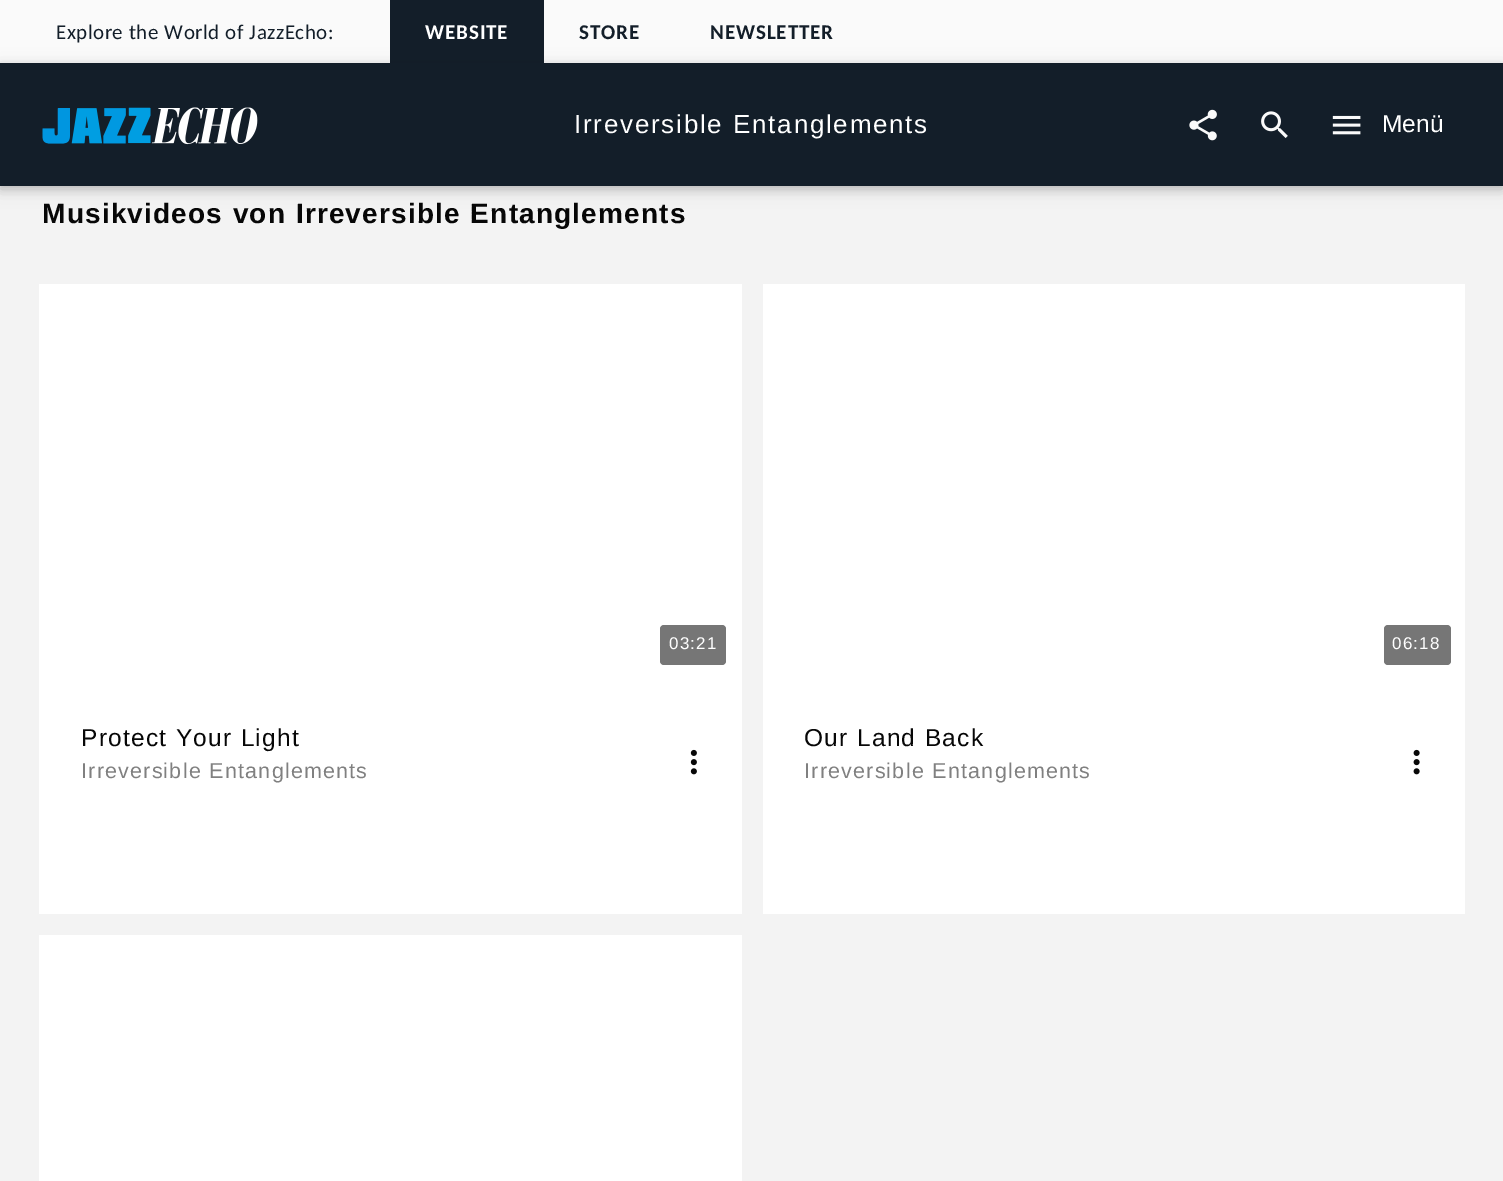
%!PS
<< /PageSize [1503 1181] /PageUsesTransparency true >> setpagedevice
/m/moveto load def
/f/fill load def
/C { dup -16 bitshift 255 div exch dup -8 bitshift 255 and 255 div exch 255 and 255 div setrgbcolor } def
/F { [ exch dup neg 0 0 3 -1 roll 0 0 ] selectfont } def
/T { moveto show } def
/R { rectfill } def
/A { dup .setfillconstantalpha .setstrokeconstantalpha } def
/Q { 5 dict begin { /r /h /w /y /x } { exch def } forall
  x r add y moveto x w add y 2 copy h add r arct x w add y h add x 1 index r arct
  x y h add x y r arct x y 2 copy exch w add exch r arct closepath end } def
/S { 12 dict begin { /a /b /q /h /w /y /x } { exch def } forall gsave /was 0 def
  9 -2 -9 { dup b mul 4 div /e exch def 1 sub .425 mul 2.718 exch exp 1 add a .99 .min exch div /now exch def
    1 1 now sub 1 was sub div sub A /was now def
    w h .min e 2 mul add 0 gt { x e sub y e sub w e 2 mul add h e 2 mul add
      q e add b .6 mul add w h .min 2 div e add .min 0 .max Q fill } if } for grestore end } def
/I { 5 dict begin { /h /w /y /x /name } { exch def } forall
  gsave x y translate w h scale
  w h 8 [w 0 0 h 0 0] name (r) file false 3 colorimage grestore end } def
0 .pushpdf14devicefilter
0 1181 translate 1 -1 scale
4 setmiterlimit
16#F3F3F3 C
0 0 1503 1181 R
16#FAFAFA C
0 0 1503 63 R
/Carlito-Regular 21 F
16#131E29 C
56 39 m .5 0 32 .45 0 (Explore the World of JazzEcho:) awidthshow
390 0 154 63 R
/Carlito-Bold 21 F
16#FFFFFF C
425 39 m .9 0 (WEBSITE) ashow
16#131E29 C
579 39 m .9 0 (STORE) ashow
710 39 m .9 0 (NEWSLETTER) ashow
16#000000 C
0 67 1503 122 0 9 .12 S
0 67 1503 122 0 4.5 .16 S
16#131E29 C
0 63 1503 123 R
(1.rgb) 42 107 216 38 I
/LiberationSans-Regular 26 F
16#FFFFFF C
574 133 m .5 0 32 1.75 0 (Irreversible Entanglements) awidthshow
(2.rgb) 1189 109 28 32 I
(3.rgb) 1261 111 27 27 I
(4.rgb) 1332 115 29 20 I
/LiberationSans-Regular 24.5 F
(Menü) 1382 132 T
/LiberationSans-Bold 28 F
16#070707 C
42 223 m .5 0 32 1.2 0 (Musikvideos von Irreversible Entanglements) awidthshow
16#FFFFFF C
39 284 703 630 R
16#767676 C
660 625 66 40 4 Q f
/LiberationSans-Regular 17 F
16#FFFFFF C
669 649 m 1.2 0 (03:21) ashow
/LiberationSans-Regular 24.5 F
16#070707 C
81 746 m .5 0 32 1.2 0 (Protect Your Light) awidthshow
/LiberationSans-Regular 21.5 F
16#808080 C
81 778 m .5 0 32 1.2 0 (Irreversible Entanglements) awidthshow
(5.rgb) 690 749 7 26 I
16#FFFFFF C
763 284 702 630 R
16#767676 C
1384 625 67 40 4 Q f
/LiberationSans-Regular 17 F
16#FFFFFF C
1392 649 m 1.2 0 (06:18) ashow
/LiberationSans-Regular 24.5 F
16#070707 C
804 746 m .5 0 32 1.2 0 (Our Land Back) awidthshow
/LiberationSans-Regular 21.5 F
16#808080 C
804 778 m .5 0 32 1.2 0 (Irreversible Entanglements) awidthshow
(6.rgb) 1413 749 7 26 I
16#FFFFFF C
39 935 703 246 R
.poppdf14devicefilter showpage
